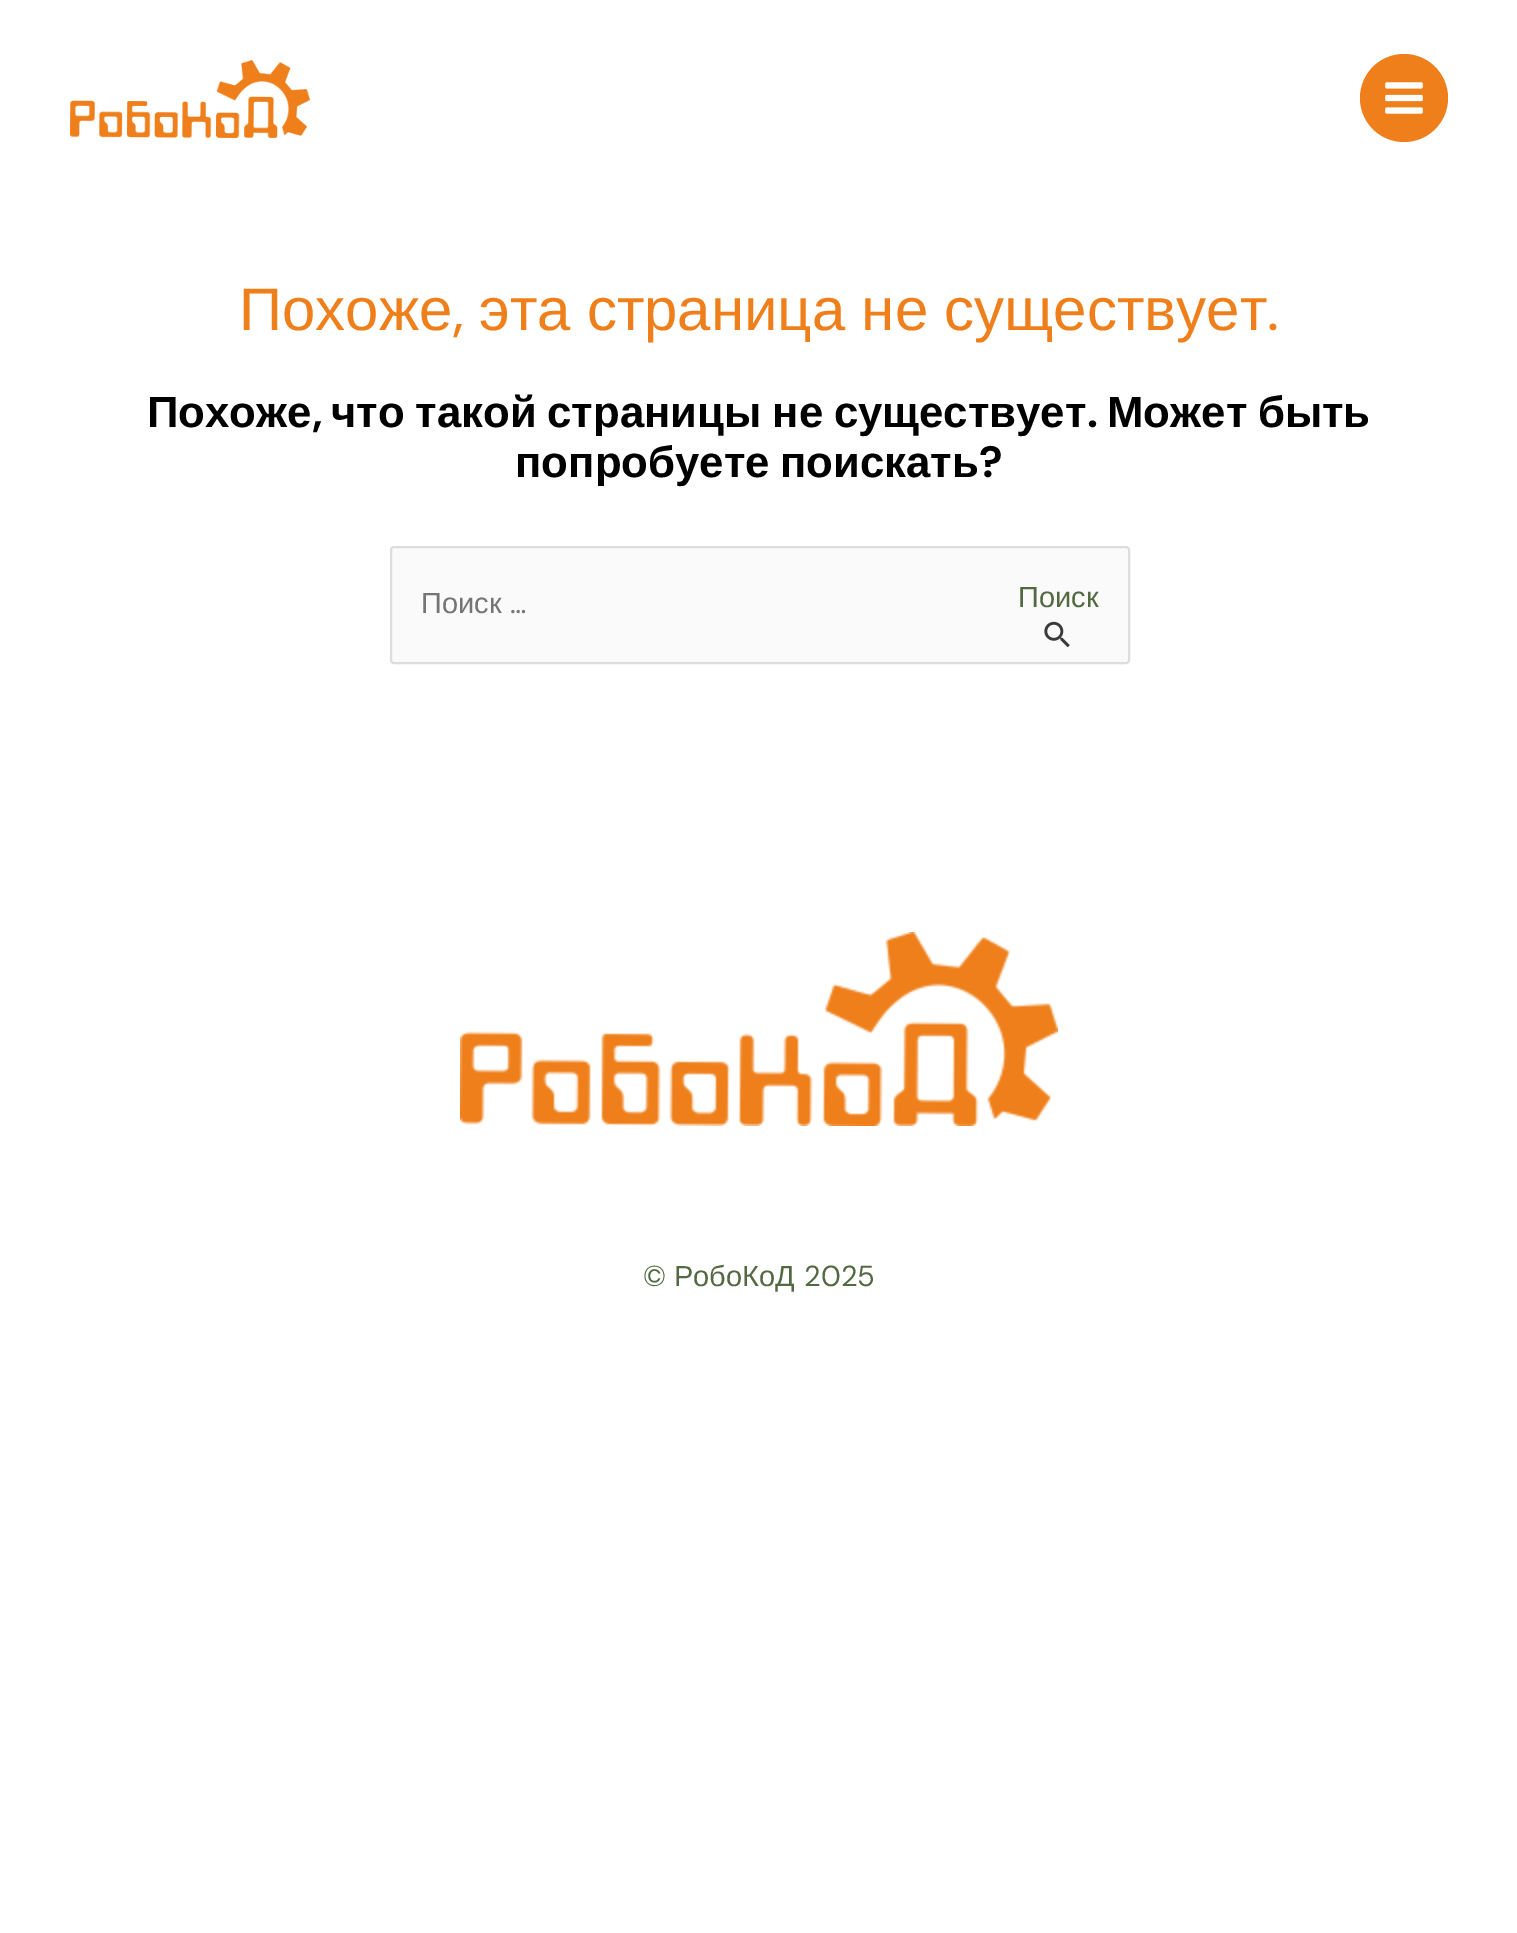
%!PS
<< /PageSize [1517 1933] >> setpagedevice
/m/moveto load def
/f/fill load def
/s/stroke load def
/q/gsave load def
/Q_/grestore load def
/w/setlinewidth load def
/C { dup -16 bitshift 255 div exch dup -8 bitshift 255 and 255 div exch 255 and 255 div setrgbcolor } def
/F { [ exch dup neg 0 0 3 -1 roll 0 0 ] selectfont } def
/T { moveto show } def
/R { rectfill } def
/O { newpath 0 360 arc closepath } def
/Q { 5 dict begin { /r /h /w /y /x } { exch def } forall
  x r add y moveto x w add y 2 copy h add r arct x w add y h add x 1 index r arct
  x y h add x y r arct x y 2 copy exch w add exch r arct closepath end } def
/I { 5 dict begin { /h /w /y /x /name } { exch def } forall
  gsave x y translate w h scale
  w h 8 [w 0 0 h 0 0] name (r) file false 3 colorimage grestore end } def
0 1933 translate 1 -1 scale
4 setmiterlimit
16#FFFFFF C
0 0 1517 1933 R
(1.rgb) 70 60 240 78 I
16#EF7F1A C
1404 98 44 O f
(2.rgb) 1385 82 38 32 I
/LiberationSans-Regular 60 F
(Похоже) 239 330 T
/DMSans-Regular 60 F
(,) 453 330 T
/LiberationSans-Regular 60 F
479 330 m -.5 0 32 (эта страница не существует) widthshow
/DMSans-Regular 60 F
(.) 1267 330 T
/LiberationSans-Bold 43.75 F
16#000000 C
(Похоже) 147 427 T
/DMSans-Bold 43.75 F
(,) 312 427 T
/LiberationSans-Bold 43.75 F
331 427 m -1.5 0 32 (что такой страницы не существует) widthshow
/DMSans-Bold 43.75 F
(.) 1087 427 T
/LiberationSans-Bold 43.75 F
1107 427 m -1.5 0 32 (Может быть) widthshow
515 477 m -2 0 32 (попробуете поискать) widthshow
/DMSans-Bold 43.75 F
(?) 979 477 T
16#FAFAFA C
391 547 738 116 3 Q q f Q_
16#DDDDDD C
2 w
s
/LiberationSans-Regular 29 F
16#757575 C
(Поиск) 421 613 T
/DMSans-Regular 29 F
(…) 510 613 T
/LiberationSans-Regular 29 F
16#536942 C
(Поиск) 1018 607 T
(3.rgb) 1044 621 26 27 I
(4.rgb) 460 932 598 194 I
/DMSans-Regular 29 F
(©) 643 1286 T
/LiberationSans-Regular 29 F
(РобоКоД) 674 1286 T
/DMSans-Regular 29 F
(2025) 804 1286 T
showpage
